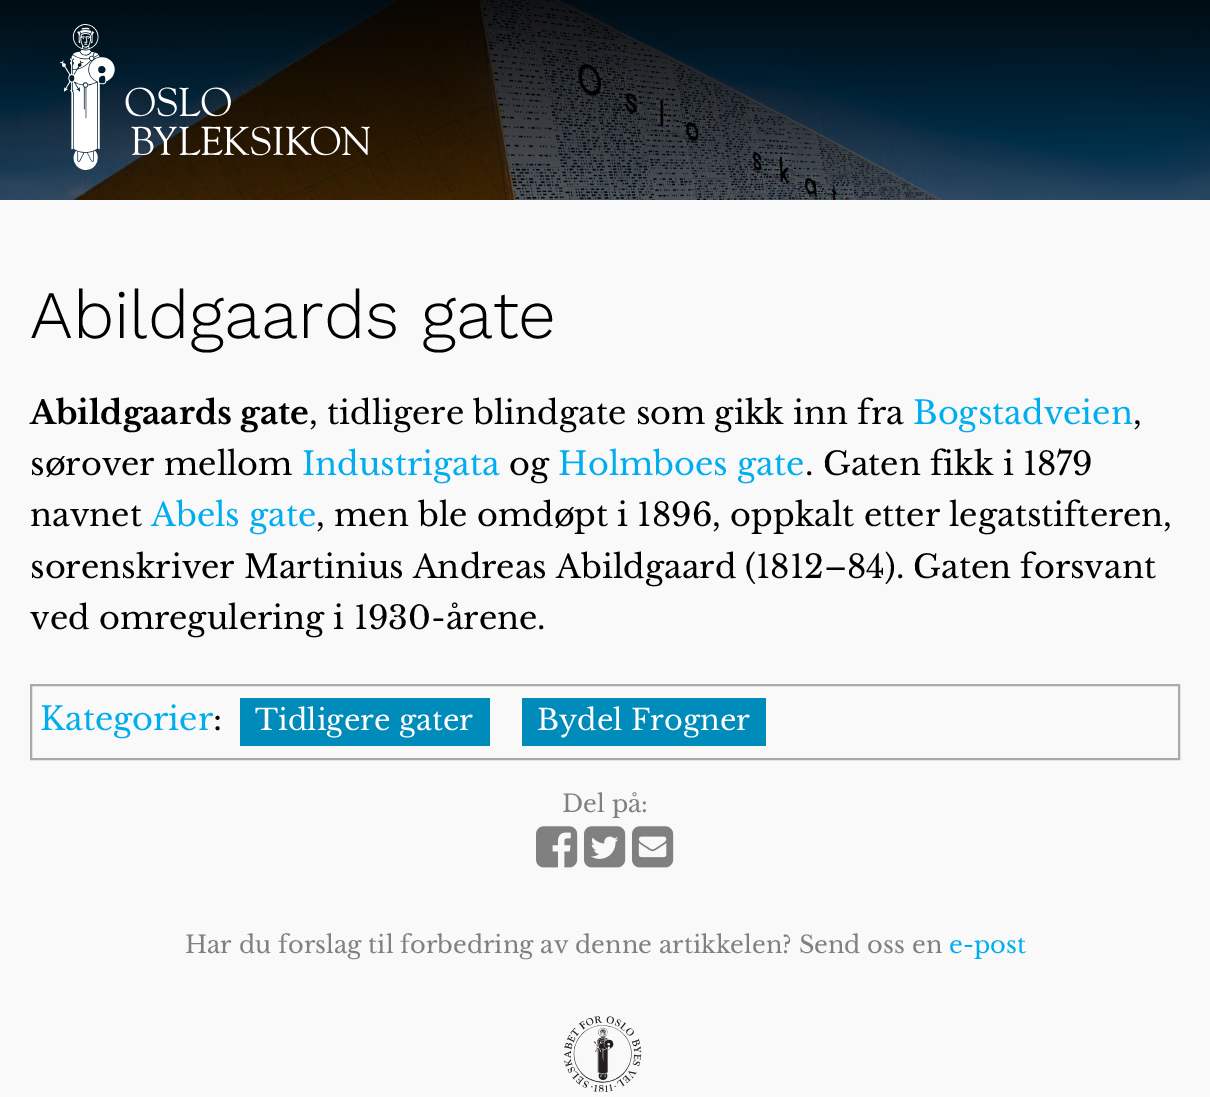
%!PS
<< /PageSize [1210 1097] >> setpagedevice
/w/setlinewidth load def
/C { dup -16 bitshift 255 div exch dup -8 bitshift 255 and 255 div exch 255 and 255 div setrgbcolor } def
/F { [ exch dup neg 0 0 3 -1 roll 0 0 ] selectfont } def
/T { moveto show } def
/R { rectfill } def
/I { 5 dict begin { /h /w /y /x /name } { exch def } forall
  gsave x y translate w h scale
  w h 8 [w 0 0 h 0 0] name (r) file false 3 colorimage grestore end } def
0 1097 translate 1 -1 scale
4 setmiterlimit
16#FAF9FA C
0 0 1210 1097 R
(1.rgb) 0 0 1210 200 I
(2.rgb) 60 24 310 146 I
/WorkSans-Light 68 F
16#000000 C
(Abildgaards gate) 30 338 T
/LibreBaskerville-Bold 32 F
(Abildgaards gate) 30 424 T
/LibreBaskerville-Regular 32 F
(, tidligere blindgate som gikk inn fra) 309 424 T
16#00AEEF C
(Bogstadveien) 913 424 T
16#000000 C
(,) 1133 424 T
(sørover mellom) 30 475 T
16#00AEEF C
(Industrigata) 302 475 T
16#000000 C
(og) 509 475 T
16#00AEEF C
(Holmboes gate) 558 475 T
16#000000 C
(. Gaten fikk i 1879) 805 475 T
(navnet) 30 526 T
16#00AEEF C
(Abels gate) 151 526 T
16#000000 C
(, men ble omdøpt i 1896, oppkalt etter legatstifteren,) 316 526 T
(sorenskriver Martinius Andreas Abildgaard \(1812–84\). Gaten forsvant) 30 578 T
(ved omregulering i 1930-årene.) 30 629 T
16#AAAAAA C
2 w
31 685 1148 74 rectstroke
16#00AEEF C
(Kategorier) 40 730 T
16#000000 C
(:) 213 730 T
16#008CBA C
240 698 250 48 R
/LibreBaskerville-Regular 28.75 F
16#FFFFFF C
(Tidligere gater) 255 730 T
16#008CBA C
522 698 244 48 R
16#FFFFFF C
(Bydel Frogner) 537 730 T
/LibreBaskerville-Regular 24 F
16#808080 C
(Del på:) 562 812 T
(3.rgb) 536 826 42 42 I
(4.rgb) 584 826 42 42 I
(5.rgb) 632 826 42 42 I
(Har du forslag til forbedring av denne artikkelen? Send oss en) 185 953 T
16#00AEEF C
(e-post) 949 953 T
(6.rgb) 563 1016 79 76 I
showpage
